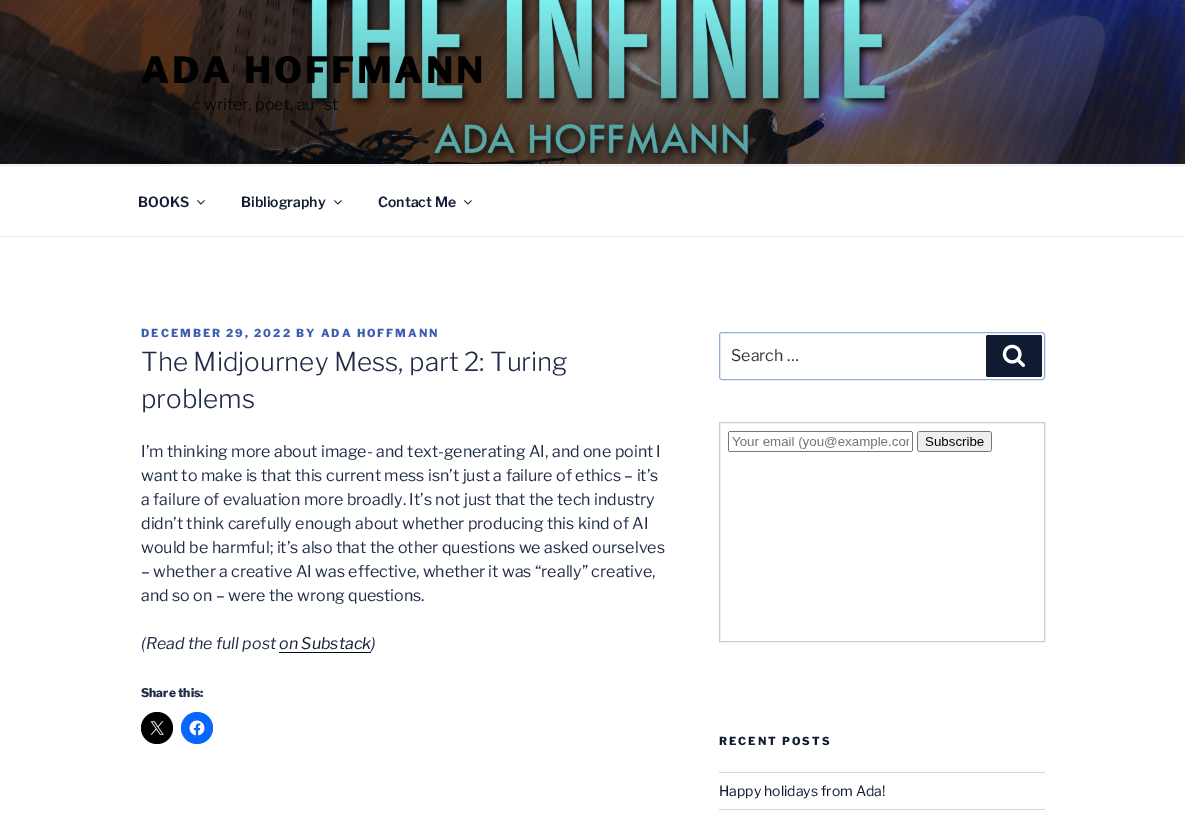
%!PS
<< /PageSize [1185 820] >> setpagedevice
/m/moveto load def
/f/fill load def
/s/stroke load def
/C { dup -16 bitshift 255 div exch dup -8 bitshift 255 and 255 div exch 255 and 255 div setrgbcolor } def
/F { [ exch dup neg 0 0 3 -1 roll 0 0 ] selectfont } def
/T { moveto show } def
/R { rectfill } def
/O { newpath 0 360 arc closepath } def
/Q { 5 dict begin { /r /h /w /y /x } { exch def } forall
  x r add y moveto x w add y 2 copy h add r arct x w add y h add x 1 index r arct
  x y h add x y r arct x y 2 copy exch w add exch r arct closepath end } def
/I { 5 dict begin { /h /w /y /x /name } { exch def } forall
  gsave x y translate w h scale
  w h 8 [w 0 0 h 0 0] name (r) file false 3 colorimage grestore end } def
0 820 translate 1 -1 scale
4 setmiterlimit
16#FFFFFF C
0 0 1185 820 R
16#F7F9FC C
0 164 1185 1 R
(1.rgb) 0 0 1185 164 I
/LibreFranklin-Thin 36 F
16#000000 C
141 83 m 2.9 0 (ADA HOFFMANN) ashow
/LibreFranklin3-Thin 16 F
16#070605 C
(c writer, poet, au) 192 110 T
(st) 324 110 T
16#E4EAF6 C
0 165 1185 1 R
0 236 1185 1 R
/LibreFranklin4-Thin 14 F
16#111B32 C
(BOOKS) 138 207 T
(2.rgb) 197 200 8 5 I
(Bibliography) 241 207 T
(2.rgb) 334 200 8 5 I
(Contact Me) 378 207 T
(2.rgb) 464 200 8 5 I
/LibreFranklin-Thin 11 F
16#3B5EB0 C
141 337 m 2 0 (DECEMBER 29, 2022 BY ADA HOFFMANN) ashow
/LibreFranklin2-Thin 26 F
16#1F2B47 C
(The Midjourney Mess, part 2: Turing) 141 371 T
(problems) 141 408 T
/LibreFranklin3-Thin 16 F
(I’m thinking more about image- and text-generating AI, and one point I) 141 457 T
(want to make is that this current mess isn’t just a failure of ethics – it’s) 141 481 T
(a failure of evaluation more broadly. It’s not just that the tech industry) 141 505 T
(didn’t think carefully enough about whether producing this kind of AI) 141 529 T
(would be harmful; it’s also that the other questions we asked ourselves) 141 553 T
(– whether a creative AI was effective, whether it was “really” creative,) 141 577 T
(and so on – were the wrong questions.) 141 601 T
/LibreFranklin-ThinItalic 16 F
(\(Read the full post) 141 649 T
16#111B32 C
(on Substack) 279 649 T
16#1F2B47 C
(\)) 371 649 T
16#080C17 C
279 652 92 1 R
/LibreFranklin-Thin 12 F
16#1F2B47 C
(Share this:) 141 697 T
16#000000 C
157 728 16 O f
(3.rgb) 150 721 14 14 I
16#0866FF C
197 728 16 O f
(4.rgb) 189 720 16 16 I
16#98ACDD C
719.5 332.5 325 47 2.5 Q s
/LibreFranklin3-Thin 16 F
16#333333 C
(Search …) 731 361 T
16#111B32 C
986 335 56 42 2 Q f
(5.rgb) 1002 344 23 23 I
16#CCCCCC C
719.5 422.5 325 219 rectstroke
(6.rgb) 728 431 264 21 I
/LibreFranklin-Thin 11 F
16#111B32 C
719 745 m 2 0 (RECENT POSTS) ashow
16#CDD7EE C
719 772 326 1 R
719 809 326 1 R
/LibreFranklin3-Thin 14 F
16#111B32 C
(Happy holidays from Ada!) 719 796 T
showpage
